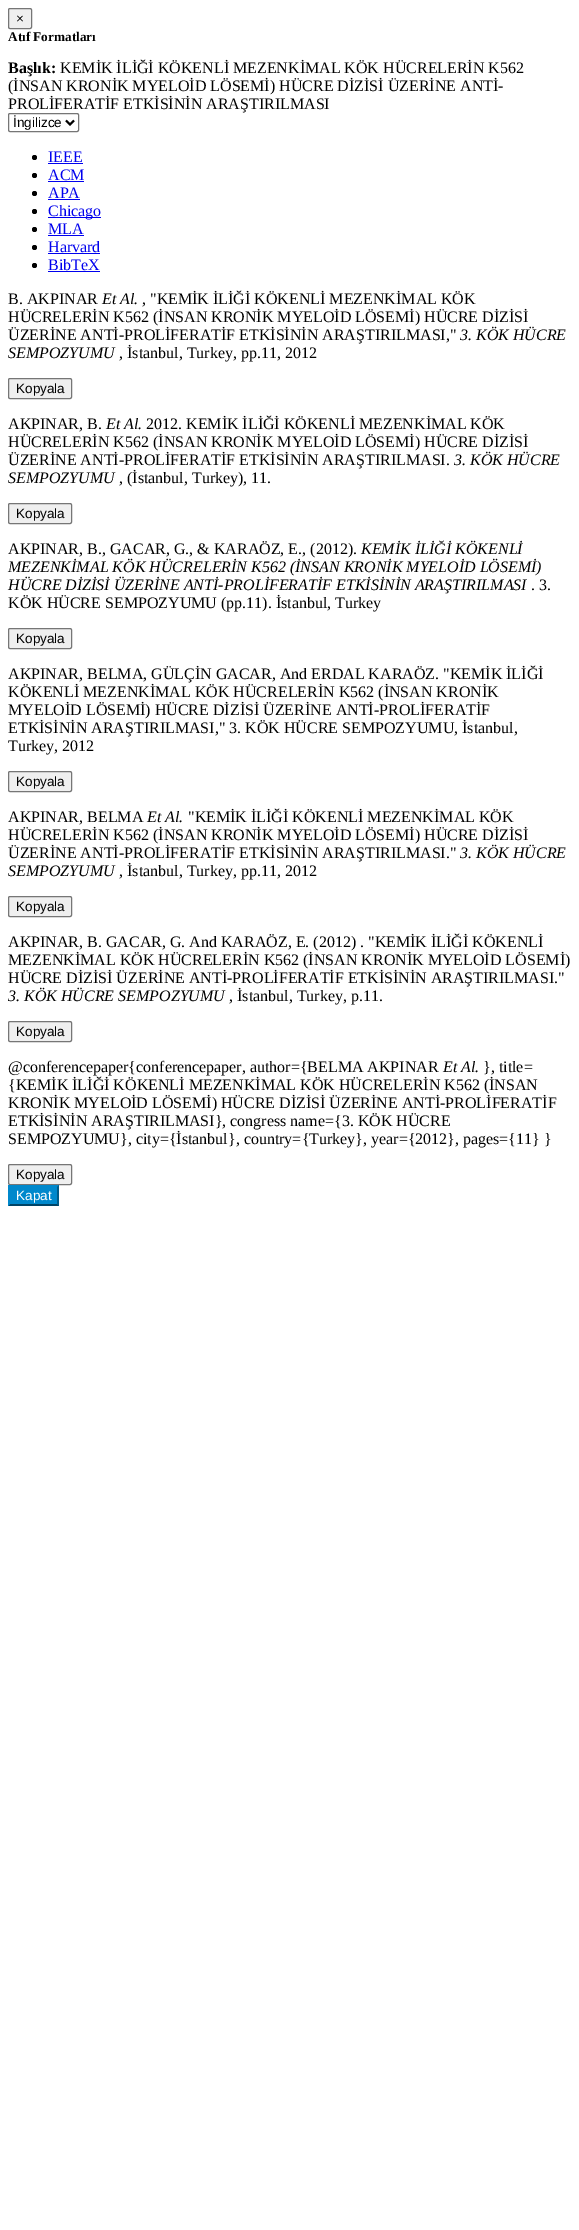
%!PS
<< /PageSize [579 2230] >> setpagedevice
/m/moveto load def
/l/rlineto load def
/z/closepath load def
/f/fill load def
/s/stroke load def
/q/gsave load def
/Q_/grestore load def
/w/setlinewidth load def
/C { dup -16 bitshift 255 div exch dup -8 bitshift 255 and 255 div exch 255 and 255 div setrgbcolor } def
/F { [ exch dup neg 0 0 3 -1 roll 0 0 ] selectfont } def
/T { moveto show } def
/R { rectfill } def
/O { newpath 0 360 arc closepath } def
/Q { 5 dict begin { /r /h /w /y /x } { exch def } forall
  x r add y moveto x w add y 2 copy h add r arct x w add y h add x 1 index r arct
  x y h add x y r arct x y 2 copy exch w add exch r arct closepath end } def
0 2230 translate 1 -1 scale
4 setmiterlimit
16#FFFFFF C
0 0 579 2230 R
16#EFEFEF C
8.5 8.5 23 20 1.5 Q q f Q_
16#767676 C
s
/LiberationSans-Regular 13.5 F
16#000000 C
(×) 16 23 T
/LiberationSerif-Bold 13.25 F
(Atıf Formatları) 8 41 T
/LiberationSerif-Bold 16 F
(Başlık:) 8 73 T
/LiberationSerif-Regular 16 F
(KEMİK İLİĞİ KÖKENLİ MEZENKİMAL KÖK HÜCRELERİN K562) 60 73 T
(\(İNSAN KRONİK MYELOİD LÖSEMİ\) HÜCRE DİZİSİ ÜZERİNE ANTİ-) 8 91 T
(PROLİFERATİF ETKİSİNİN ARAŞTIRILMASI) 8 109 T
16#767676 C
8.5 113.5 70 18 1.5 Q s
16#000000 C
2 w
66 120.5 m 4 4 l 4 -4 l s
/LiberationSans-Regular 13.5 F
(İngilizce) 13 127 T
34.5 157.5 2.5 O f
/LiberationSerif-Regular 16 F
16#0000EE C
(IEEE) 48 162 T
48 163 35 1 R
16#000000 C
34.5 175.5 2.5 O f
16#0000EE C
(ACM) 48 180 T
48 181 36 1 R
16#000000 C
34.5 193.5 2.5 O f
16#0000EE C
(APA) 48 198 T
48 199 32 1 R
16#000000 C
34.5 211.5 2.5 O f
16#0000EE C
48 217 53 1 R
(Chicago) 48 216 T
16#000000 C
34.5 229.5 2.5 O f
16#0000EE C
(MLA) 48 234 T
48 235 36 1 R
16#000000 C
34.5 247.5 2.5 O f
16#0000EE C
(Harvard) 48 252 T
48 253 52 1 R
16#000000 C
34.5 265.5 2.5 O f
16#0000EE C
(BibTeX) 48 270 T
48 271 52 1 R
16#000000 C
(B. AKPINAR) 8 304 T
/LiberationSerif-Italic 16 F
(Et Al.) 102 304 T
/LiberationSerif-Regular 16 F
(, "KEMİK İLİĞİ KÖKENLİ MEZENKİMAL KÖK) 142 304 T
(HÜCRELERİN K562 \(İNSAN KRONİK MYELOİD LÖSEMİ\) HÜCRE DİZİSİ) 8 322 T
(ÜZERİNE ANTİ-PROLİFERATİF ETKİSİNİN ARAŞTIRILMASI,") 8 340 T
/LiberationSerif-Italic 16 F
(3. KÖK HÜCRE) 460 340 T
(SEMPOZYUMU) 8 358 T
/LiberationSerif-Regular 16 F
(, İstanbul, Turkey, pp.11, 2012) 119 358 T
16#EFEFEF C
8.5 378.5 63 20 1.5 Q q f Q_
16#767676 C
1 w
s
/LiberationSans-Regular 13.5 F
16#000000 C
(Kopyala) 16 393 T
/LiberationSerif-Regular 16 F
(AKPINAR, B.) 8 429 T
/LiberationSerif-Italic 16 F
(Et Al.) 106 429 T
/LiberationSerif-Regular 16 F
(2012. KEMİK İLİĞİ KÖKENLİ MEZENKİMAL KÖK) 146 429 T
(HÜCRELERİN K562 \(İNSAN KRONİK MYELOİD LÖSEMİ\) HÜCRE DİZİSİ) 8 447 T
(ÜZERİNE ANTİ-PROLİFERATİF ETKİSİNİN ARAŞTIRILMASI.) 8 465 T
/LiberationSerif-Italic 16 F
(3. KÖK HÜCRE) 454 465 T
(SEMPOZYUMU) 8 483 T
/LiberationSerif-Regular 16 F
(, \(İstanbul, Turkey\), 11.) 119 483 T
16#EFEFEF C
8.5 503.5 63 20 1.5 Q q f Q_
16#767676 C
s
/LiberationSans-Regular 13.5 F
16#000000 C
(Kopyala) 16 518 T
/LiberationSerif-Regular 16 F
(AKPINAR, B., GACAR, G., & KARAÖZ, E., \(2012\).) 8 554 T
/LiberationSerif-Italic 16 F
(KEMİK İLİĞİ KÖKENLİ) 361 554 T
(MEZENKİMAL KÖK HÜCRELERİN K562 \(İNSAN KRONİK MYELOİD LÖSEMİ\)) 8 572 T
(HÜCRE DİZİSİ ÜZERİNE ANTİ-PROLİFERATİF ETKİSİNİN ARAŞTIRILMASI) 8 590 T
/LiberationSerif-Regular 16 F
(. 3.) 531 590 T
(KÖK HÜCRE SEMPOZYUMU \(pp.11\). İstanbul, Turkey) 8 608 T
16#EFEFEF C
8.5 628.5 63 20 1.5 Q q f Q_
16#767676 C
s
/LiberationSans-Regular 13.5 F
16#000000 C
(Kopyala) 16 643 T
/LiberationSerif-Regular 16 F
(AKPINAR, BELMA, GÜLÇİN GACAR, And ERDAL KARAÖZ. "KEMİK İLİĞİ) 8 679 T
(KÖKENLİ MEZENKİMAL KÖK HÜCRELERİN K562 \(İNSAN KRONİK) 8 697 T
(MYELOİD LÖSEMİ\) HÜCRE DİZİSİ ÜZERİNE ANTİ-PROLİFERATİF) 8 715 T
(ETKİSİNİN ARAŞTIRILMASI," 3. KÖK HÜCRE SEMPOZYUMU, İstanbul,) 8 733 T
(Turkey, 2012) 8 751 T
16#EFEFEF C
8.5 771.5 63 20 1.5 Q q f Q_
16#767676 C
s
/LiberationSans-Regular 13.5 F
16#000000 C
(Kopyala) 16 786 T
/LiberationSerif-Regular 16 F
(AKPINAR, BELMA) 8 822 T
/LiberationSerif-Italic 16 F
(Et Al.) 147 822 T
/LiberationSerif-Regular 16 F
("KEMİK İLİĞİ KÖKENLİ MEZENKİMAL KÖK) 188 822 T
(HÜCRELERİN K562 \(İNSAN KRONİK MYELOİD LÖSEMİ\) HÜCRE DİZİSİ) 8 840 T
(ÜZERİNE ANTİ-PROLİFERATİF ETKİSİNİN ARAŞTIRILMASI.") 8 858 T
/LiberationSerif-Italic 16 F
(3. KÖK HÜCRE) 460 858 T
(SEMPOZYUMU) 8 876 T
/LiberationSerif-Regular 16 F
(, İstanbul, Turkey, pp.11, 2012) 119 876 T
16#EFEFEF C
8.5 896.5 63 20 1.5 Q q f Q_
16#767676 C
s
/LiberationSans-Regular 13.5 F
16#000000 C
(Kopyala) 16 911 T
/LiberationSerif-Regular 16 F
(AKPINAR, B. GACAR, G. And KARAÖZ, E. \(2012\) . "KEMİK İLİĞİ KÖKENLİ) 8 947 T
(MEZENKİMAL KÖK HÜCRELERİN K562 \(İNSAN KRONİK MYELOİD LÖSEMİ\)) 8 965 T
(HÜCRE DİZİSİ ÜZERİNE ANTİ-PROLİFERATİF ETKİSİNİN ARAŞTIRILMASI.") 8 983 T
/LiberationSerif-Italic 16 F
(3. KÖK HÜCRE SEMPOZYUMU) 8 1001 T
/LiberationSerif-Regular 16 F
(, İstanbul, Turkey, p.11.) 229 1001 T
16#EFEFEF C
8.5 1021.5 63 20 1.5 Q q f Q_
16#767676 C
s
/LiberationSans-Regular 13.5 F
16#000000 C
(Kopyala) 16 1036 T
/LiberationSerif-Regular 16 F
(@conferencepaper{conferencepaper, author={BELMA AKPINAR) 8 1072 T
/LiberationSerif-Italic 16 F
(Et Al.) 443 1072 T
/LiberationSerif-Regular 16 F
(}, title=) 483 1072 T
({KEMİK İLİĞİ KÖKENLİ MEZENKİMAL KÖK HÜCRELERİN K562 \(İNSAN) 8 1090 T
(KRONİK MYELOİD LÖSEMİ\) HÜCRE DİZİSİ ÜZERİNE ANTİ-PROLİFERATİF) 8 1108 T
(ETKİSİNİN ARAŞTIRILMASI}, congress name={3. KÖK HÜCRE) 8 1126 T
(SEMPOZYUMU}, city={İstanbul}, country={Turkey}, year={2012}, pages={11} }) 8 1144 T
16#EFEFEF C
8.5 1164.5 63 20 1.5 Q q f Q_
16#767676 C
s
/LiberationSans-Regular 13.5 F
16#000000 C
(Kopyala) 16 1179 T
16#0088CC C
8 1185 51 21 R
16#005B88 C
59 1185 m 0 21 l -2 -2 l 0 -17 l z f
16#004466 C
59 1206 m -51 0 l 2 -2 l 47 0 l z f
16#0088CC C
8 1206 m 0 -21 l 2 2 l 0 17 l z f
16#FFFFFF C
(Kapat) 16 1200 T
showpage
